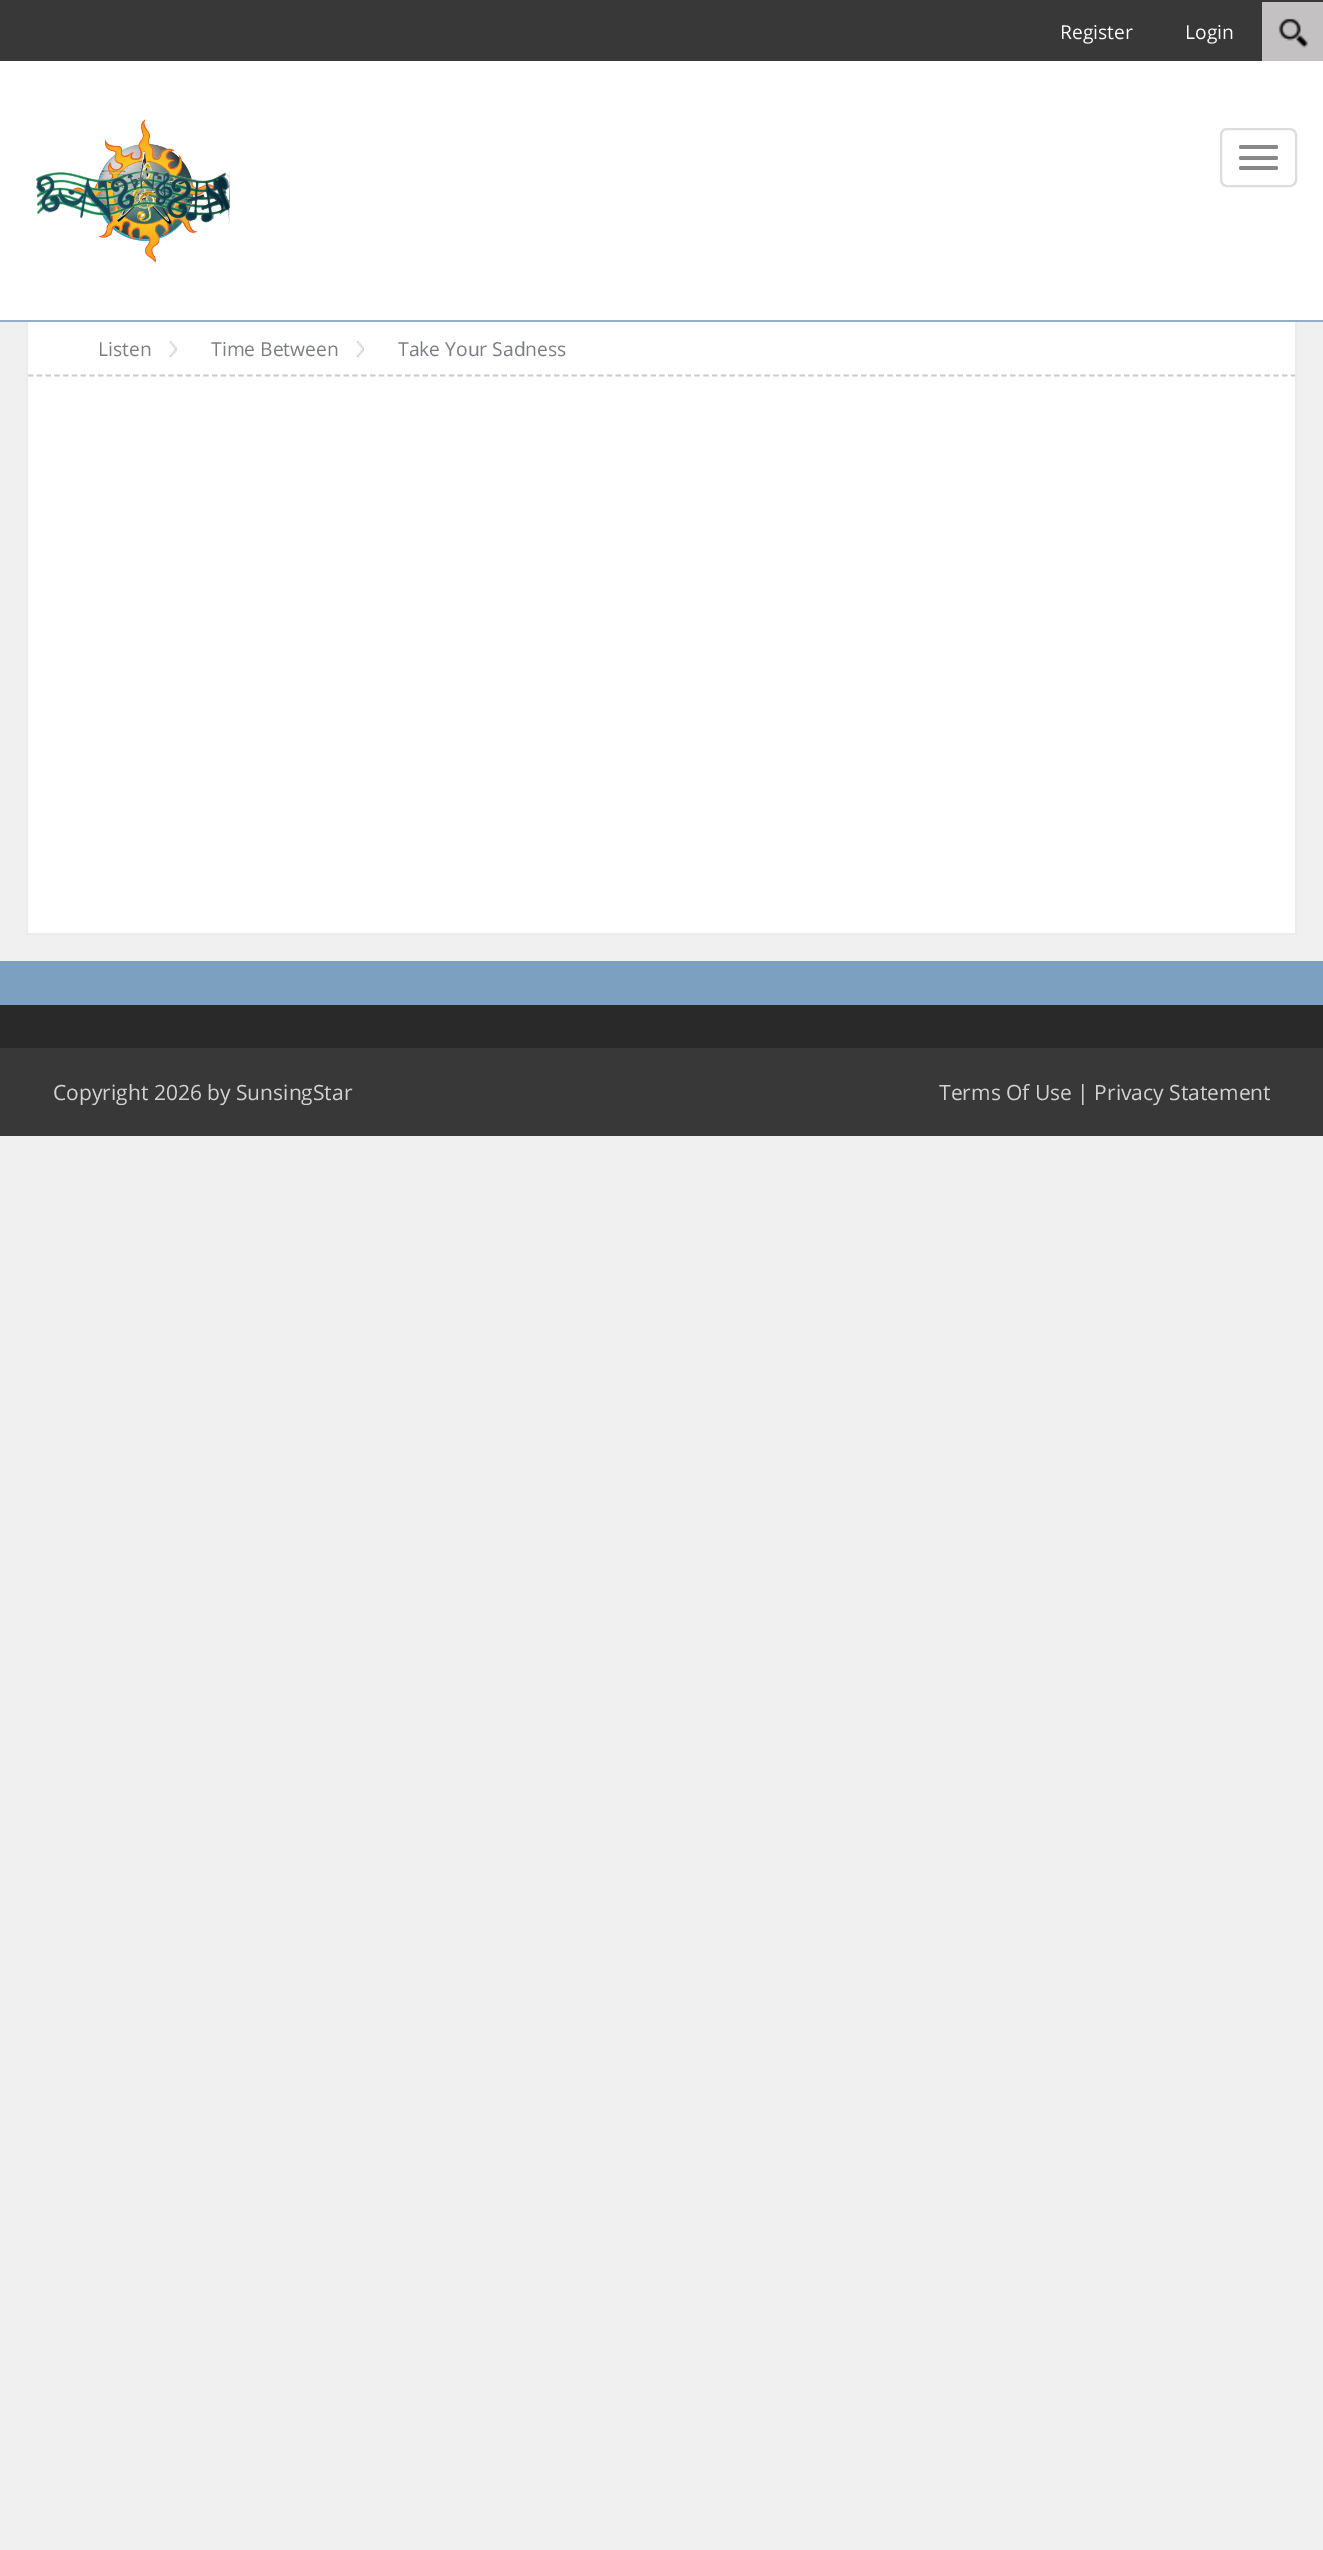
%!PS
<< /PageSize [1323 2550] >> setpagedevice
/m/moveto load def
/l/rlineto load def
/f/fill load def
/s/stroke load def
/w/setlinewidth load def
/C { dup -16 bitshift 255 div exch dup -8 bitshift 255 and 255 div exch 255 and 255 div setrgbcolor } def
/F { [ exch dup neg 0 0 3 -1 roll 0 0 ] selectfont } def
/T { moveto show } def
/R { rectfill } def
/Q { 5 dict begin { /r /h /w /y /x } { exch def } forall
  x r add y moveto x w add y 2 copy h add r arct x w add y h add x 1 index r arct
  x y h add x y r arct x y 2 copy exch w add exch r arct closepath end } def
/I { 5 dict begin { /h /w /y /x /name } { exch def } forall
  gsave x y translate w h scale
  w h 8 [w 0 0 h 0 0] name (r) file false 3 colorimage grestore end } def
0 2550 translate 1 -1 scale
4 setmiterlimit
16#F0F0F0 C
0 0 1323 2550 R
16#383838 C
0 0 1323 61 R
/OpenSans-Regular 19.25 F
16#FFFFFF C
(Register) 1060 39 T
(Login) 1185 39 T
16#C3C1C1 C
1262 2 61 59 R
(1.rgb) 1278 18 30 30 I
16#FFFFFF C
0 61 1323 259 R
16#91AFCA C
0 320 1323 2 R
(2.rgb) 35 119 195 144 I
16#DDDDDD C
2 w
1221 129 75 57 6 Q s
16#888888 C
1239 145 39 4 2 Q f
1239 156 39 4 2 Q f
1239 166 39 4 2 Q f
16#FFFFFF C
28 322 1267 611 R
16#ECECEC C
1295 322 2 613 R
26 933 1271 2 R
26 322 2 613 R
16#CCCCCC C
1.8 w
[5.25 3.52] 0 setdash
28 375.5 m 1267 0 l s
16#7B7D82 C
(Listen) 98 356 T
(3.rgb) 169 341 8 16 I
(Time Between) 211 356 T
(4.rgb) 357 341 7 16 I
(Take Your Sadness) 398 356 T
16#292929 C
0 1005 1323 43 R
16#7CA0C0 C
0 961 1323 44 R
16#383838 C
0 1048 1323 88 R
/OpenSans-Regular 21 F
16#D2D2D2 C
(Copyright 2026 by SunsingStar) 53 1100 T
(Terms Of Use | Privacy Statement) 939 1100 T
showpage
